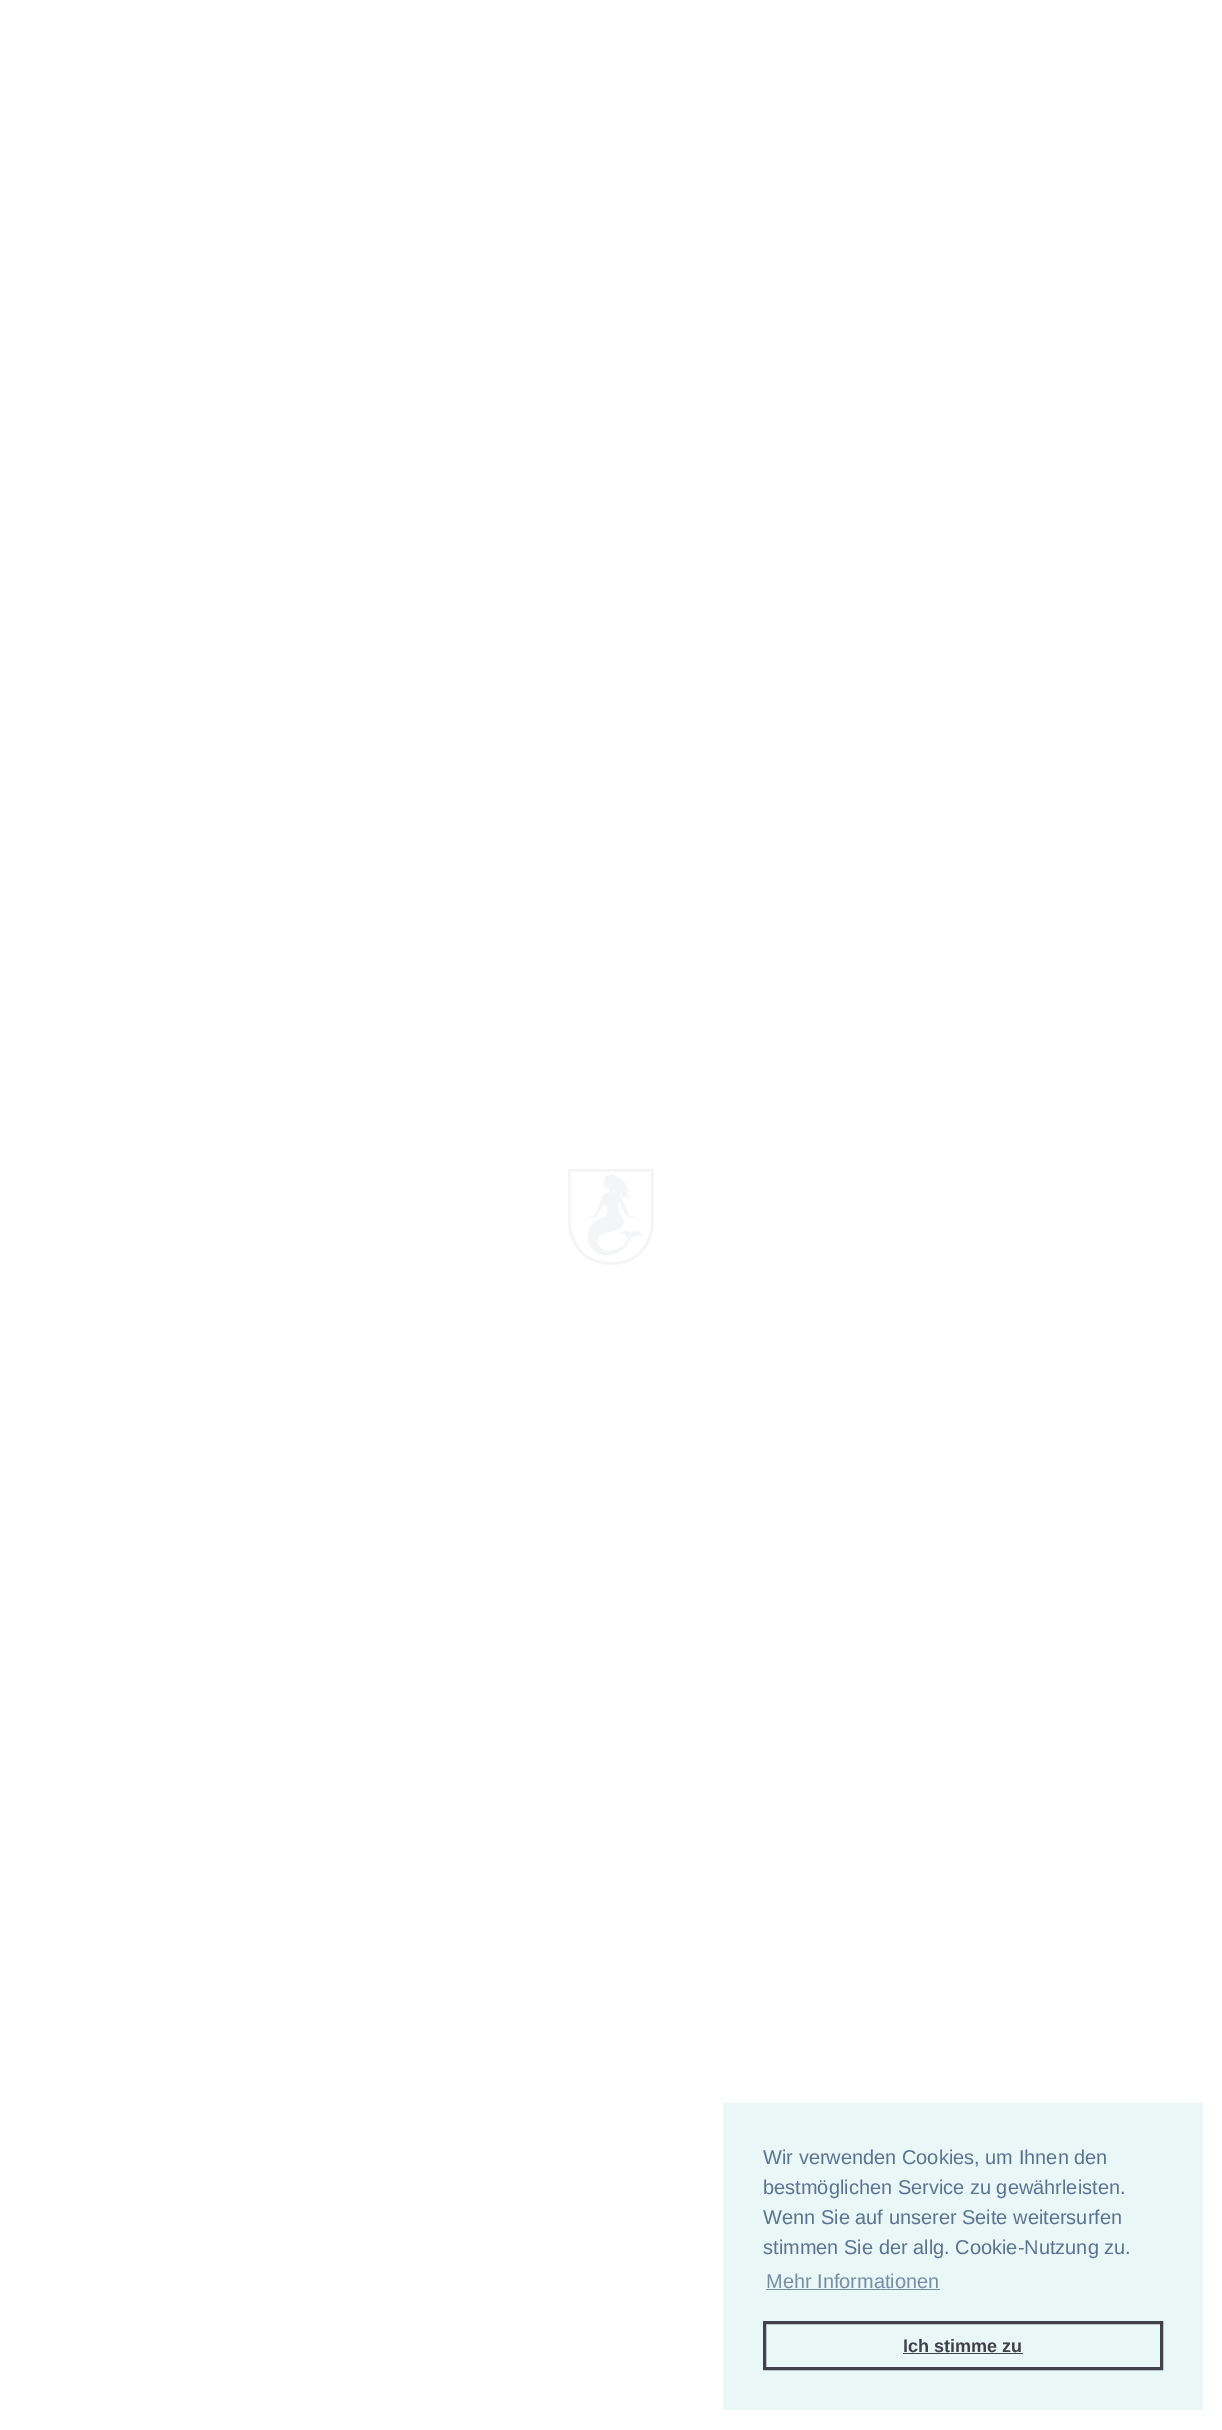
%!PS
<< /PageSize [1222 2430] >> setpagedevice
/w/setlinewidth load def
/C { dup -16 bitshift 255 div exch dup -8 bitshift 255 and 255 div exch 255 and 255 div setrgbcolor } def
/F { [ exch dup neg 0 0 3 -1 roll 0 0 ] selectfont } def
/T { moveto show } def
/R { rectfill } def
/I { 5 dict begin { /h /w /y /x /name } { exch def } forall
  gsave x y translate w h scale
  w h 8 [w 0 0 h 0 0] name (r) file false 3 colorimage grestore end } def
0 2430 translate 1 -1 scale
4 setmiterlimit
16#FFFFFF C
0 0 1222 2430 R
(1.rgb) 568 1169 86 96 I
16#EAF7F7 C
723 2103 480 307 R
/LiberationSans-Regular 20 F
16#5C7291 C
(Wir verwenden Cookies, um Ihnen den) 763 2164 T
(bestmöglichen Service zu gewährleisten.) 763 2194 T
(Wenn Sie auf unserer Seite weitersurfen) 763 2224 T
(stimmen Sie der allg. Cookie-Nutzung zu.) 763 2254 T
16#788DA5 C
(Mehr Informationen) 766 2288 T
766 2289 174 1 R
16#40424B C
3 w
764.5 2322.5 397 46 rectstroke
/LiberationSans-Bold 18 F
(Ich stimme zu) 903 2352 T
903 2353 120 1 R
showpage
